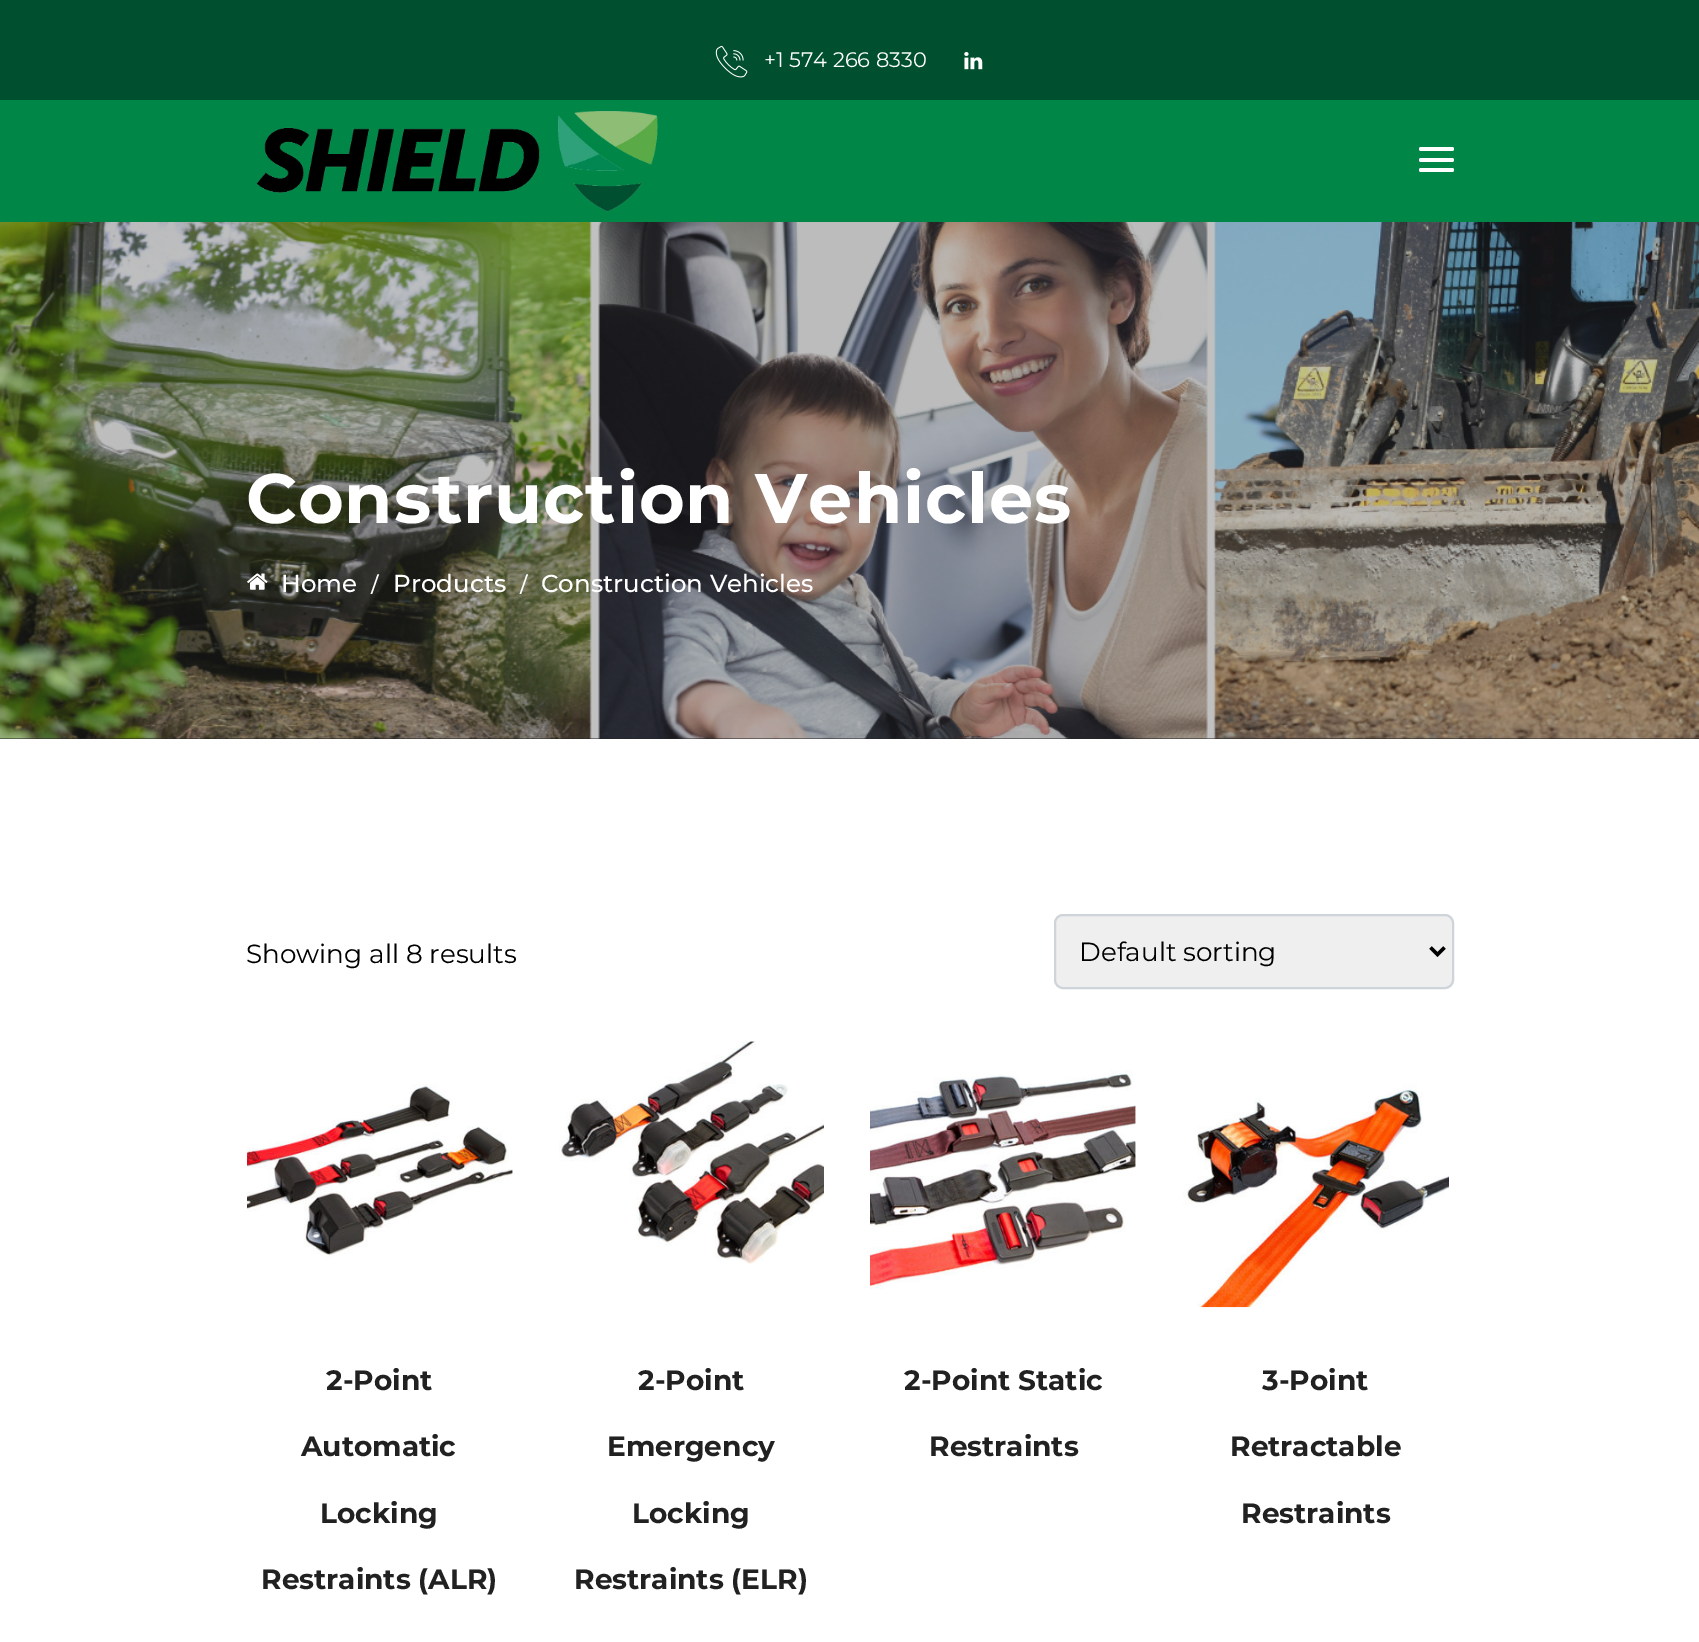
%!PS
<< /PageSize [1699 1642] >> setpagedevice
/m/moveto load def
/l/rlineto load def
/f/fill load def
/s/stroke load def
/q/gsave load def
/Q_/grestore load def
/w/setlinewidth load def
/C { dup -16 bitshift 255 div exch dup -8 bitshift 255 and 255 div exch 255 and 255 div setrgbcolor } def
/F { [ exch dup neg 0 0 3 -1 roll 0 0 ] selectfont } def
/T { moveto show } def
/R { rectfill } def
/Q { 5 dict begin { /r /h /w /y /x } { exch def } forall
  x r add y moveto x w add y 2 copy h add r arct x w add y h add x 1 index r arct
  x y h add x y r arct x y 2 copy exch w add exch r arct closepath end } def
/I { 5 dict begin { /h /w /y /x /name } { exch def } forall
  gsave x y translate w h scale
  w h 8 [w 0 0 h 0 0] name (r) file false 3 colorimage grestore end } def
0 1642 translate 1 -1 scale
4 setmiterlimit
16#FFFFFF C
0 0 1699 1642 R
16#00502F C
0 0 1699 100 R
(1.rgb) 715 45 33 33 I
/Montserrat-Regular 21 F
16#FFFFFF C
(+1 574 266 8330) 764 67 T
(2.rgb) 964 52 19 18 I
16#008748 C
0 100 1699 122 R
(3.rgb) 256 111 402 101 I
16#FFFFFF C
1419 147 35 4 2 Q f
1419 158 35 4 2 Q f
1419 168 35 4 2 Q f
16#212121 C
0 738 1699 1 R
(4.rgb) 0 222 1699 517 I
/Montserrat-Bold 70 F
16#FFFFFF C
246 523 m .9 0 (Construction Vehicles) ashow
(5.rgb) 247 573 21 17 I
/Montserrat-Medium 24.5 F
(Home) 281 592 T
/Montserrat-Medium 21 F
(/) 371 592 T
/Montserrat-Medium 24.5 F
(Products) 393 592 T
/Montserrat-Medium 21 F
(/) 520 592 T
/Montserrat-Medium 24.5 F
(Construction Vehicles) 541 592 T
/Montserrat-Regular 26.25 F
16#000000 C
(Showing all 8 results) 246 963 T
16#EFEFEF C
1055 915 398 73 8 Q q f Q_
16#CED4DA C
2 w
s
16#000000 C
3.5 w
1430.5 947.5 m 7 7 l 7 -7 l s
(Default sorting) 1079 961 T
(6.rgb) 247 1084 266 175 I
/Montserrat-Bold 28 F
16#212121 C
(2-Point) 326 1390 T
(Automatic) 301 1456 T
(Locking) 320 1523 T
(Restraints \(ALR\)) 261 1589 T
(7.rgb) 559 1041 265 223 I
(2-Point) 638 1390 T
(Emergency) 607 1456 T
(Locking) 632 1523 T
(Restraints \(ELR\)) 574 1589 T
(8.rgb) 870 1070 266 220 I
(2-Point Static) 904 1390 T
(Restraints) 929 1456 T
(9.rgb) 1183 1084 266 224 I
(3-Point) 1262 1390 T
(Retractable) 1230 1456 T
(Restraints) 1241 1523 T
showpage
